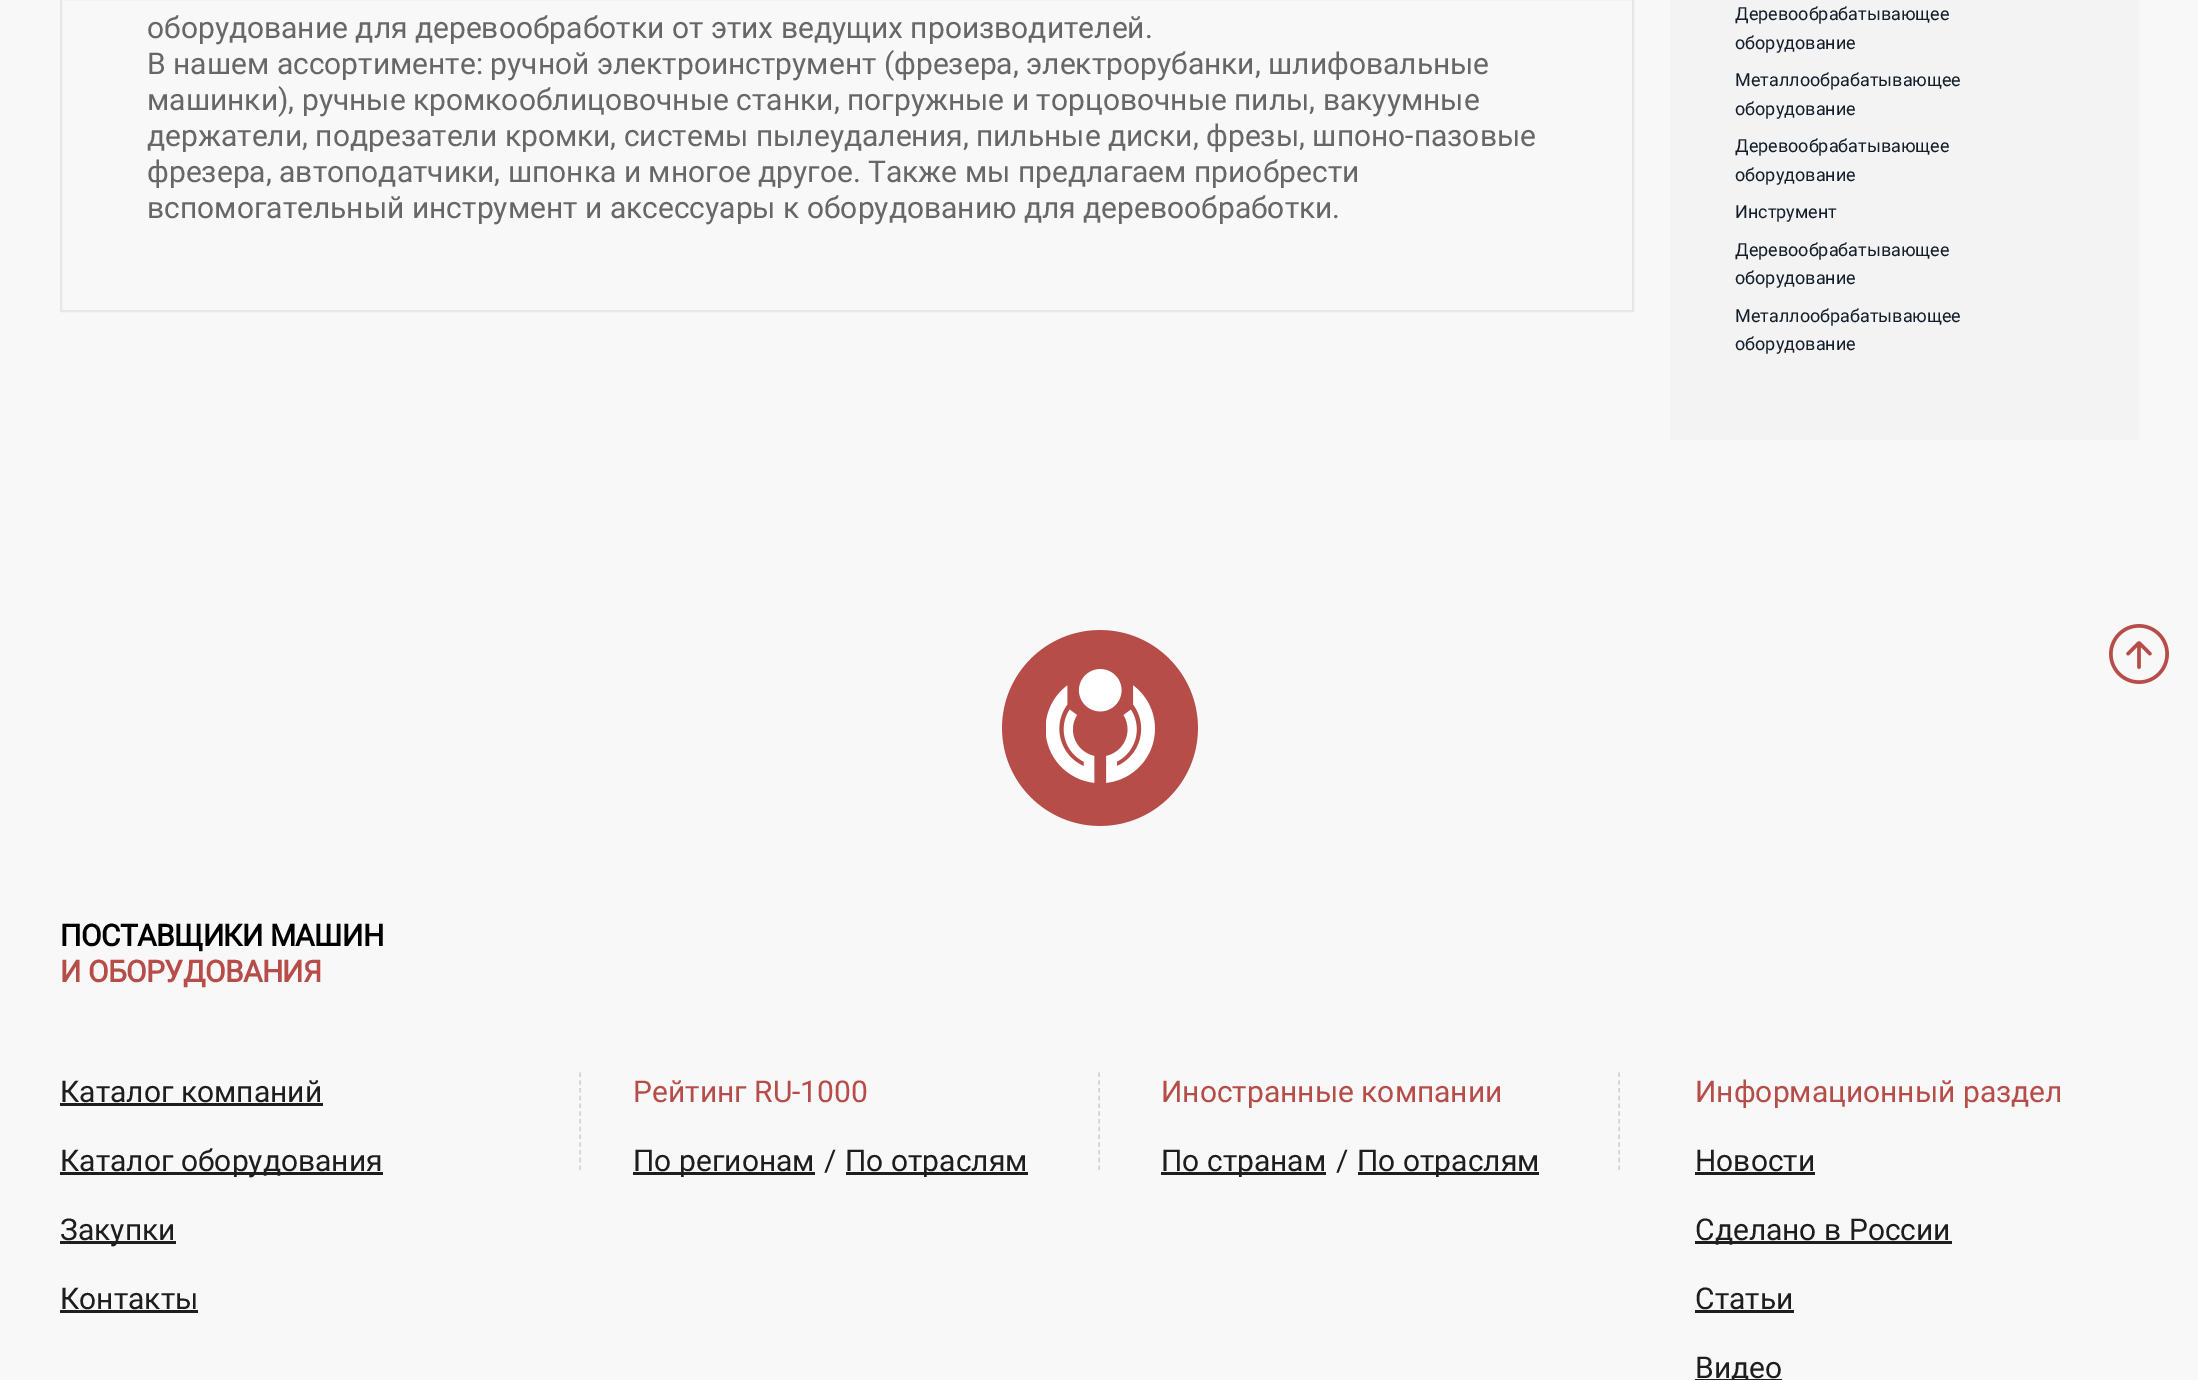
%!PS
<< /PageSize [2198 1380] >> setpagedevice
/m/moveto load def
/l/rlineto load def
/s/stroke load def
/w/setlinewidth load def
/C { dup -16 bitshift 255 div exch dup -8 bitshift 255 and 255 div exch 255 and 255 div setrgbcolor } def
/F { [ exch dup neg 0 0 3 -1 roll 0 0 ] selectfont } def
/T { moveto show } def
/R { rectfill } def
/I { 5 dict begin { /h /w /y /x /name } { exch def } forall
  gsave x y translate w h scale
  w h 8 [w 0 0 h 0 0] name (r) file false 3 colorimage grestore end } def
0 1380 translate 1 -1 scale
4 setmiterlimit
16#F8F8F8 C
0 0 2198 1380 R
16#E7E7E7 C
2 w
61 -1 1572 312 rectstroke
/Roboto-Regular 30 F
16#676767 C
(оборудование для деревообработки от этих ведущих производителей.) 147 38 T
(В нашем ассортименте: ручной электроинструмент \(фрезера, электрорубанки, шлифовальные) 147 74 T
(машинки\), ручные кромкооблицовочные станки, погружные и торцовочные пилы, вакуумные) 147 110 T
(держатели, подрезатели кромки, системы пылеудаления, пильные диски, фрезы, шпоно-пазовые) 147 146 T
(фрезера, автоподатчики, шпонка и многое другое. Также мы предлагаем приобрести) 147 182 T
(вспомогательный инструмент и аксессуары к оборудованию для деревообработки.) 147 218 T
16#F3F3F3 C
1670 0 469 440 R
/Roboto-Regular 18 F
16#131E2B C
(Деревообрабатывающее) 1735 20 T
(оборудование) 1735 49 T
(Металлообрабатывающее) 1735 86 T
(оборудование) 1735 115 T
(Деревообрабатывающее) 1735 152 T
(оборудование) 1735 181 T
(Инструмент) 1735 218 T
(Деревообрабатывающее) 1735 256 T
(оборудование) 1735 284 T
(Металлообрабатывающее) 1735 322 T
(оборудование) 1735 350 T
(1.rgb) 2109 624 60 60 I
(2.rgb) 1002 630 196 196 I
/Roboto-Bold 30 F
16#000000 C
60 946 m -.6 0 (ПОСТАВЩИКИ МАШИН) ashow
16#B74D48 C
60 982 m -.6 0 (И ОБОРУДОВАНИЯ) ashow
/Roboto-Regular 30 F
16#1E1E1E C
(Каталог компаний) 60 1102 T
60 1103 263 3 R
60 1172 323 3 R
(Каталог оборудования) 60 1171 T
60 1241 116 3 R
(Закупки) 60 1240 T
(Контакты) 60 1309 T
60 1310 138 3 R
16#D2D2D2 C
1.5 w
[4.5 3.25] 0 setdash
580 1072.5 m 0 97.5 l s
16#B74D48 C
(Рейтинг RU-1000) 633 1102 T
16#1E1E1E C
633 1172 182 3 R
(По регионам) 633 1171 T
(/) 824 1171 T
846 1172 182 3 R
(По отраслям) 845 1171 T
16#D2D2D2 C
1099 1072.5 m 0 97.5 l s
16#B74D48 C
(Иностранные компании) 1161 1102 T
16#1E1E1E C
1161 1172 165 3 R
(По странам) 1161 1171 T
(/) 1336 1171 T
1358 1172 181 3 R
(По отраслям) 1357 1171 T
16#D2D2D2 C
1619 1072.5 m 0 97.5 l s
16#B74D48 C
(Информационный раздел) 1695 1102 T
16#1E1E1E C
(Новости) 1695 1171 T
1695 1172 120 3 R
1695 1241 257 3 R
(Сделано в России) 1695 1240 T
(Статьи) 1695 1309 T
1695 1310 99 3 R
1695 1379 87 1 R
(Видео) 1695 1378 T
showpage
